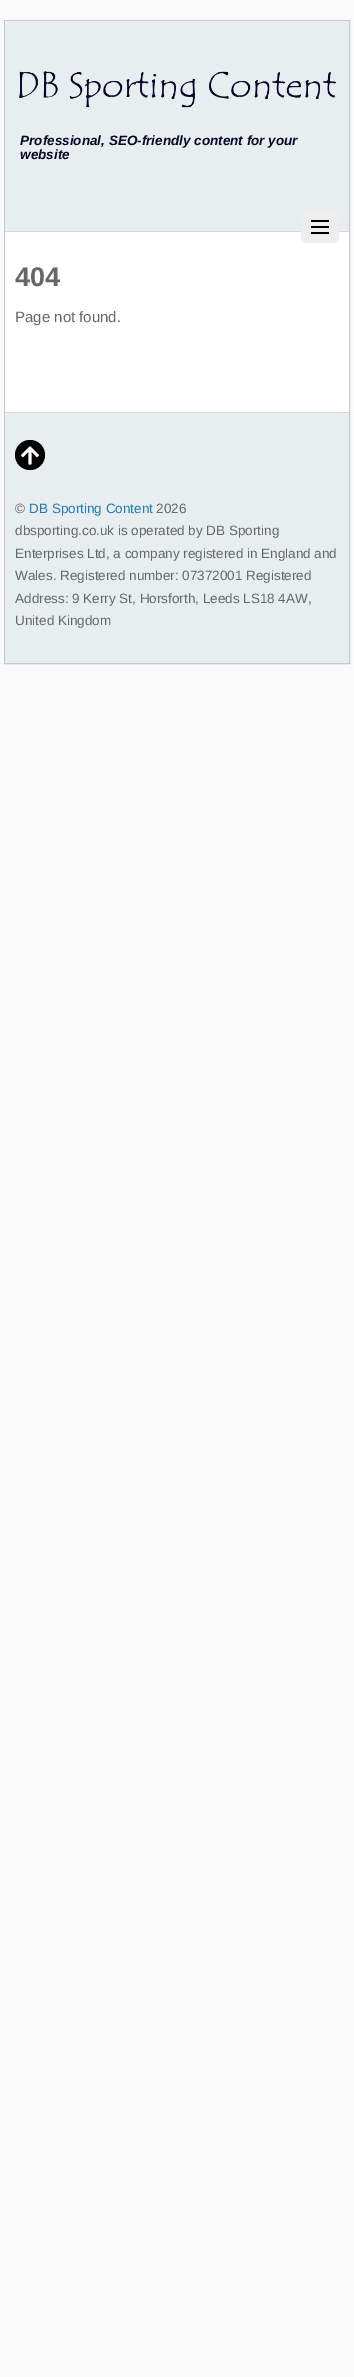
%!PS
<< /PageSize [354 2377] >> setpagedevice
/f/fill load def
/C { dup -16 bitshift 255 div exch dup -8 bitshift 255 and 255 div exch 255 and 255 div setrgbcolor } def
/F { [ exch dup neg 0 0 3 -1 roll 0 0 ] selectfont } def
/T { moveto show } def
/R { rectfill } def
/O { newpath 0 360 arc closepath } def
/Q { 5 dict begin { /r /h /w /y /x } { exch def } forall
  x r add y moveto x w add y 2 copy h add r arct x w add y h add x 1 index r arct
  x y h add x y r arct x y 2 copy exch w add exch r arct closepath end } def
/I { 5 dict begin { /h /w /y /x /name } { exch def } forall
  gsave x y translate w h scale
  w h 8 [w 0 0 h 0 0] name (r) file false 3 colorimage grestore end } def
0 2377 translate 1 -1 scale
4 setmiterlimit
16#F9F9F9 C
0 0 354 2377 R
16#C4C9CA C
4.5 20.5 345 643 rectstroke
16#E8EEF0 C
5 21 344 210 R
16#D2DADD C
5 231 344 1 R
(1.rgb) 19 71 318 37 I
/LiberationSans-BoldItalic 13.5 F
16#080529 C
(Professional, SEO-friendly content for your) 20 145 T
(website) 20 159 T
16#FFFFFF C
5 232 344 180 R
16#EEEEEE C
301 211 38 32 5 Q f
16#000000 C
311 232 18 2 R
311 220 18 2 R
311 226 18 2 R
/LiberationSans-Bold 27 F
16#666666 C
(404) 15 286 T
/LiberationSans-Regular 15 F
(Page not found.) 15 322 T
16#E8EEF0 C
5 413 344 250 R
16#D2DADD C
5 412 344 1 R
16#000000 C
30 455 15 O f
(2.rgb) 21 446 18 19 I
/LiberationSans-Regular 13.5 F
16#666666 C
(©) 15 513 T
16#1F7BB6 C
(DB Sporting Content) 29 513 T
16#666666 C
(2026) 156 513 T
(dbsporting.co.uk is operated by DB Sporting) 15 535 T
(Enterprises Ltd, a company registered in England and) 15 558 T
(Wales. Registered number: 07372001 Registered) 15 580 T
(Address: 9 Kerry St, Horsforth, Leeds LS18 4AW,) 15 603 T
(United Kingdom) 15 625 T
showpage
